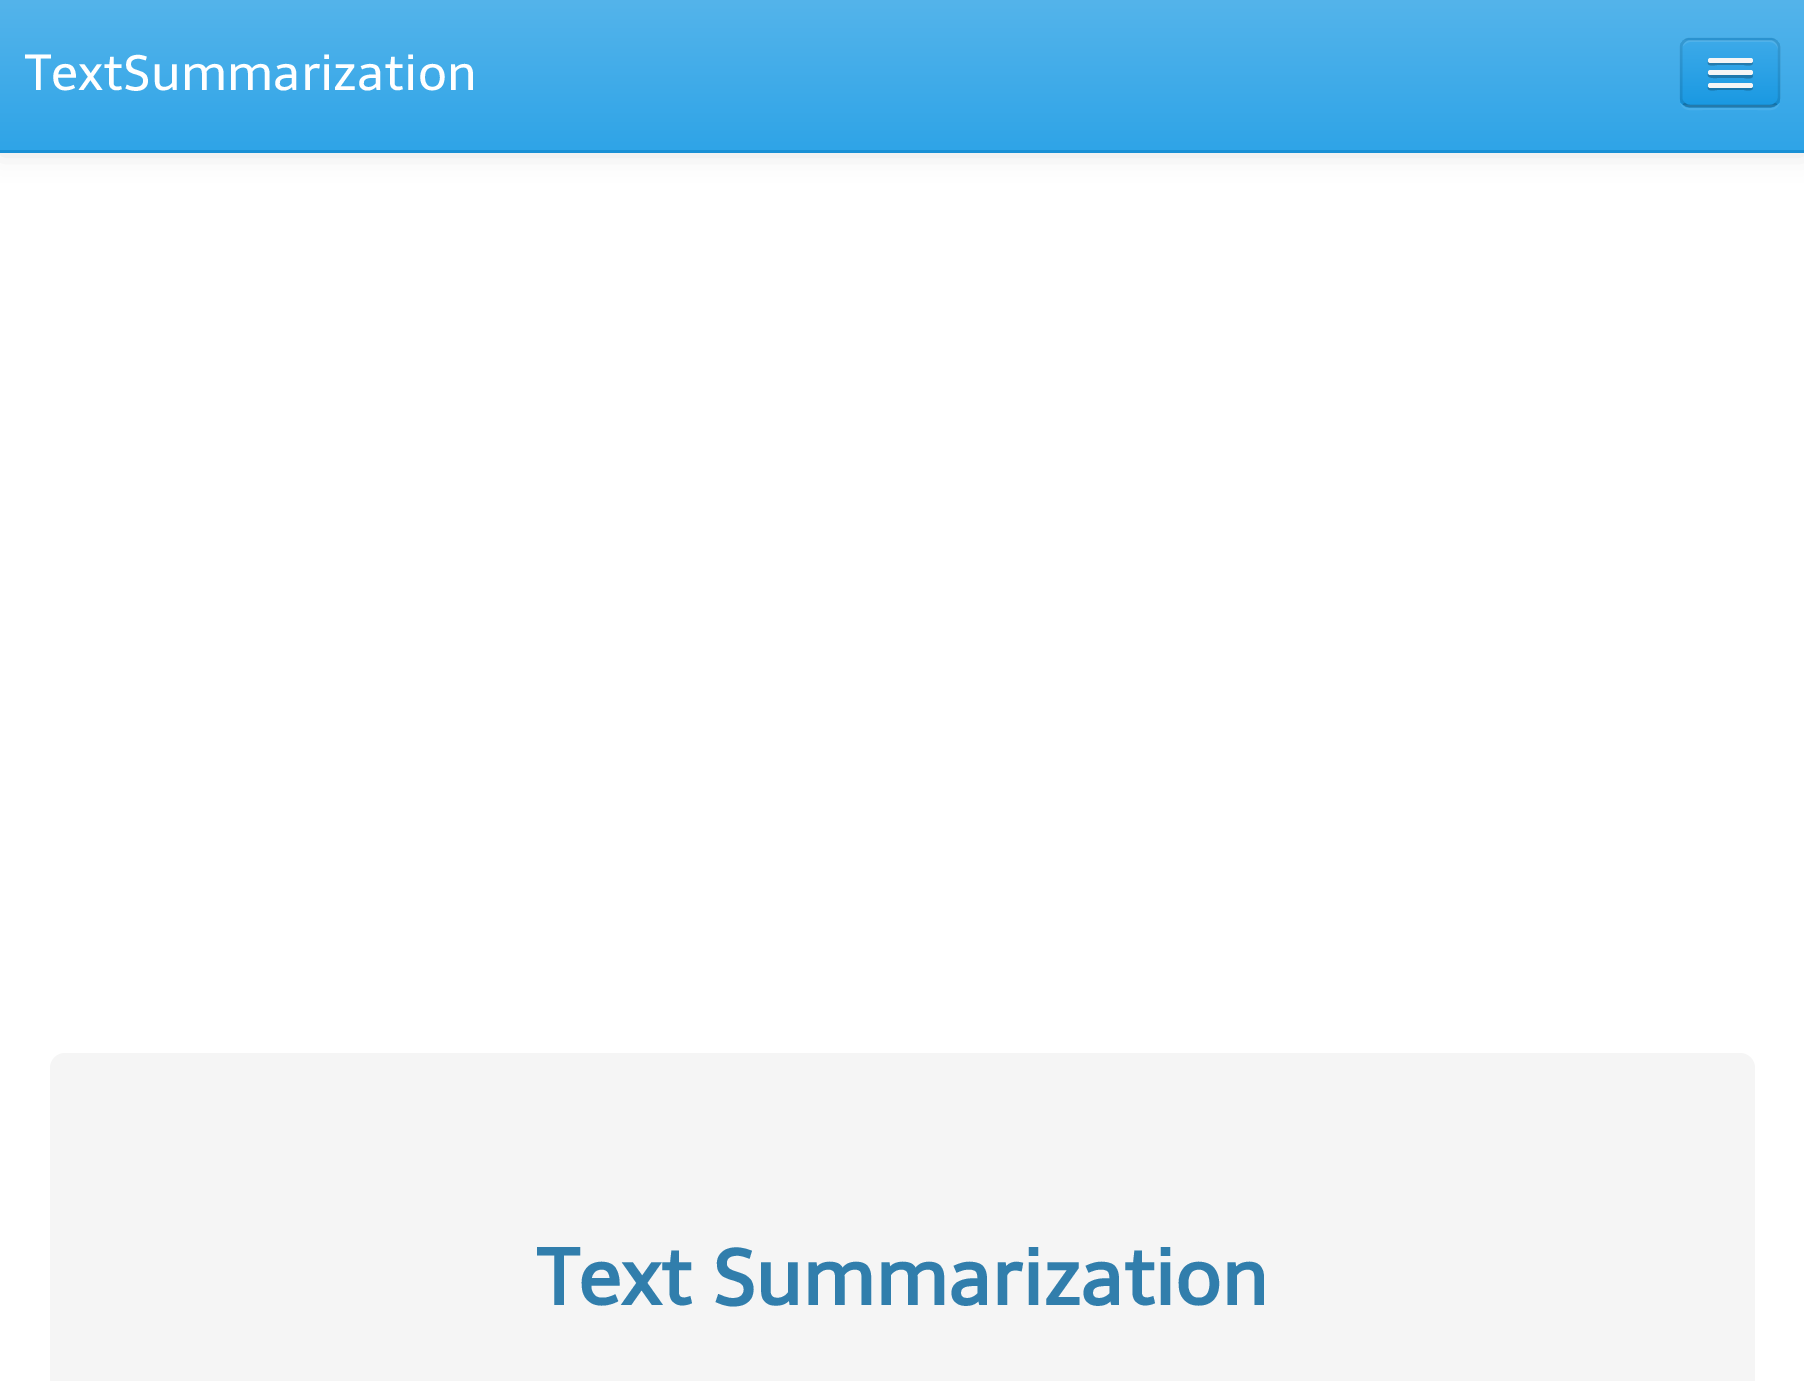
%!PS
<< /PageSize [1804 1381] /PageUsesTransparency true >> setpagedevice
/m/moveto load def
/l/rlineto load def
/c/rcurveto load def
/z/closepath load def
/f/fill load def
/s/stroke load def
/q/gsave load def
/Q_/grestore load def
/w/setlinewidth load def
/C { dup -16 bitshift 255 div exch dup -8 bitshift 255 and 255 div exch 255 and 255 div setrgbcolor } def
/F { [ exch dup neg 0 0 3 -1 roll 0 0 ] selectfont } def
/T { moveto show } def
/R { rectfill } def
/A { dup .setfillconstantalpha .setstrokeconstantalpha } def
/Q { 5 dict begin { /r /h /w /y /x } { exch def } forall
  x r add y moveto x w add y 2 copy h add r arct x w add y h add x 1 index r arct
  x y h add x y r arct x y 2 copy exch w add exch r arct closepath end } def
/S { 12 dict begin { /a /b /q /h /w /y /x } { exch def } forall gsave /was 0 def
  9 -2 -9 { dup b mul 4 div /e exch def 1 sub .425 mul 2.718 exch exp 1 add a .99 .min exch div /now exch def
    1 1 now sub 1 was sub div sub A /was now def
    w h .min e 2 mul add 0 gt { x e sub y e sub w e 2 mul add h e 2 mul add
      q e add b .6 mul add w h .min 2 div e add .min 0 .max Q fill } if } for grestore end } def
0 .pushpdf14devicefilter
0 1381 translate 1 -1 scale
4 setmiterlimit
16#FFFFFF C
0 0 1804 1381 R
16#000000 C
0 3 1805 152 0 12.5 .1 S
q 0 0 m 1804 0 l 0 150 l -1804 0 l z clip newpath
<< /ShadingType 2 /ColorSpace /DeviceRGB /Coords [903 0 903 150] /Extend [true true] /Function << /FunctionType 2 /Domain [0 1] /C0 [.329 .706 .922] /C1 [.184 .643 .906] /N 1 >> >> shfill Q_
16#1990D5 C
0 150 1804 3 R
/Telex-Regular 50 F
16#FFFFFF C
(TextSummarization) 25 90 T
16#48AFEA C
1680 98 m 0 15 11 12 23 12 c 54 0 l 12 0 23 3 23 -12 c 0 5 -4 10 -10 10 c -80 0 l -6 0 -10 -5 -10 -10 c z f
16#2FA3E6 C
1680 38 100 70 10 Q f
q
1680 38 100 70 10 Q clip newpath
q 1680 40 m 100 0 l 0 65 l -100 0 l z clip newpath
<< /ShadingType 2 /ColorSpace /DeviceRGB /Coords [1730 40 1730 105] /Extend [true true] /Function << /FunctionType 2 /Domain [0 1] /C0 [.239 .667 .914] /C1 [.102 .6 .886] /N 1 >> >> shfill Q_
Q_
0.1 A
16#FFFFFF C
1690 42 m 80 0 l 4 0 8 4 8 8 c 0 -2 l 0 -4 -4 -8 -8 -8 c -79 0 l -4 0 -7 3 -8 6 c 2 -2 4 -4 7 -4 c z f
0.25 A
16#000000 C
2.5 w
1776 103.5 m -1.5 2 -3.5 2.5 -6 2.5 c -80 0 l -2.5 0 -4.5 -.5 -6 -2.5 c s
0.1 A
1684 103.5 m -2 -1.5 -3 -3.5 -3 -6 c 0 -50 l 0 -2.5 1 -4.5 3 -6 c 1.5 -2 3.5 -2.5 6 -2.5 c 80 0 l 2.5 0 4.5 .5 6 2.5 c 2 1.5 3 3.5 3 6 c 0 50 l 0 2.5 -1 4.5 -3 6 c s
1 A
16#247BAD C
1708 62 m -2 5 8 3 9 3 c 27 0 l 1 0 8 2 9 -2 c -1 -2 l -2 1 l -40 0 l z f
16#F5F5F5 C
1708 58 45 5 2.5 Q f
16#1F78AC C
1708 74 m -2 5 9 4 9 4 c 27 0 l 1 0 8 2 9 -2 c -1 -2 l -2 1 l -3 0 -40 1 -42 -1 c z f
16#F5F5F5 C
1708 70 45 5 2.5 Q f
16#1A76AB C
1708 87 m -2 5 8 3 9 3 c 27 0 l 1 0 8 2 9 -2 c -1 -2 l -2 1 l -40 0 l z f
16#F5F5F5 C
1708 83 45 5 2.5 Q f
50 1053 1705 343 15 Q f
/Telex-Bold 78.75 F
16#317EAC C
(Text Summarization) 537 1305 T
.poppdf14devicefilter showpage
